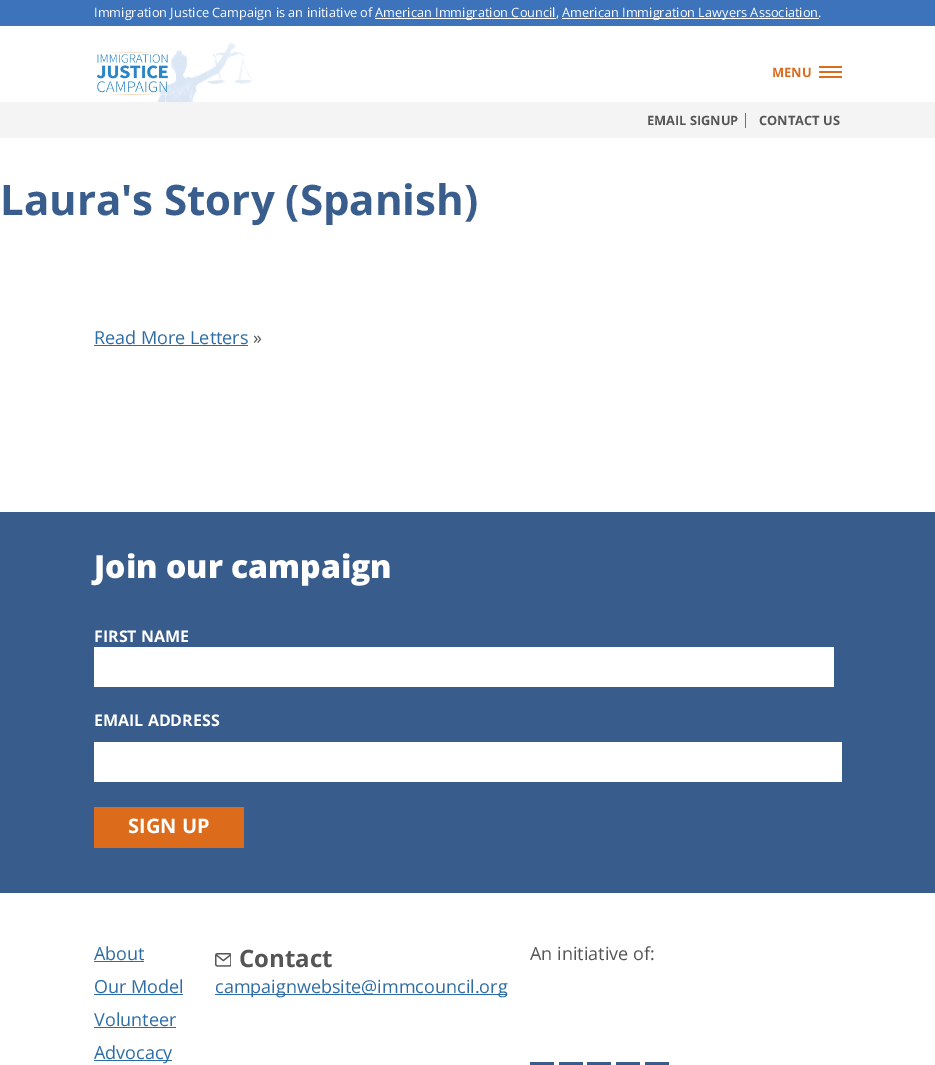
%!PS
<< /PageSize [935 1065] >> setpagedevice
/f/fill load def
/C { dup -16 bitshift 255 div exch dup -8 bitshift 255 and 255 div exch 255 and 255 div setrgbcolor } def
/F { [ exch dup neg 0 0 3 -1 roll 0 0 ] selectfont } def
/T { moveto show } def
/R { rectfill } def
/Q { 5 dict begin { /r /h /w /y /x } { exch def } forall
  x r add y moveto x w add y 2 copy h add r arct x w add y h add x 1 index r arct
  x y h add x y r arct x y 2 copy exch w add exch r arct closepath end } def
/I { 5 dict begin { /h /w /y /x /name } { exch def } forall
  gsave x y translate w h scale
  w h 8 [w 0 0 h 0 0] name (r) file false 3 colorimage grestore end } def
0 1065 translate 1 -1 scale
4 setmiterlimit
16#FFFFFF C
0 0 935 1065 R
16#3C73BB C
0 0 935 26 R
/OpenSans-Regular 12.8 F
16#FFFFFF C
(Immigration Justice Campaign is an initiative of) 94 17 T
375 18 181 1 R
(American Immigration Council,) 375 17 T
562 18 257 1 R
(American Immigration Lawyers Association.) 562 17 T
(1.rgb) 96 43 157 59 I
/OpenSans-Bold 12.8 F
16#DB6B1D C
(MENU) 772 77 T
819 71 23 2 1 Q f
819 66 23 2 R
819 76 23 2 R
16#F5F4F5 C
0 102 935 36 R
16#555555 C
(EMAIL SIGNUP) 647 125 T
16#707070 C
745 113 1 15 R
16#555555 C
(CONTACT US) 759 125 T
/OpenSans-Bold 42 F
16#395D8D C
(Laura's Story \(Spanish\)) 0 215 T
/OpenSans-Regular 18 F
16#2E6DA4 C
(Read More Letters) 94 344 T
94 345 154 1 R
16#555555 C
(») 253 344 T
16#385D8D C
0 512 935 381 R
/OpenSans-ExtraBold 32 F
16#FFFFFF C
(Join our campaign) 94 578 T
/OpenSans-Bold 16 F
(FIRST NAME) 94 642 T
94 647 740 40 R
(EMAIL ADDRESS) 94 726 T
94 742 748 40 R
16#DC6C1C C
94 807 150 41 R
/OpenSans-Bold 20 F
16#FFFFFF C
(SIGN UP) 128 833 T
/OpenSans-Regular 18 F
16#2E6DA4 C
(About) 94 960 T
94 961 50 1 R
(Our Model) 94 993 T
94 994 89 1 R
(Volunteer) 94 1026 T
94 1027 82 1 R
94 1060 78 1 R
(Advocacy) 94 1059 T
(2.rgb) 215 953 16 14 I
/OpenSans-Bold 24 F
16#555555 C
(Contact) 239 967 T
16#2E6DA4 C
215 994 292 1 R
/OpenSans-Regular 18 F
(campaignwebsite@immcouncil.org) 215 993 T
16#555555 C
(An initiative of:) 530 960 T
16#385D8D C
530 1062 24 3 R
559 1062 24 3 R
587 1062 24 3 R
616 1062 24 3 R
645 1062 24 3 R
showpage
